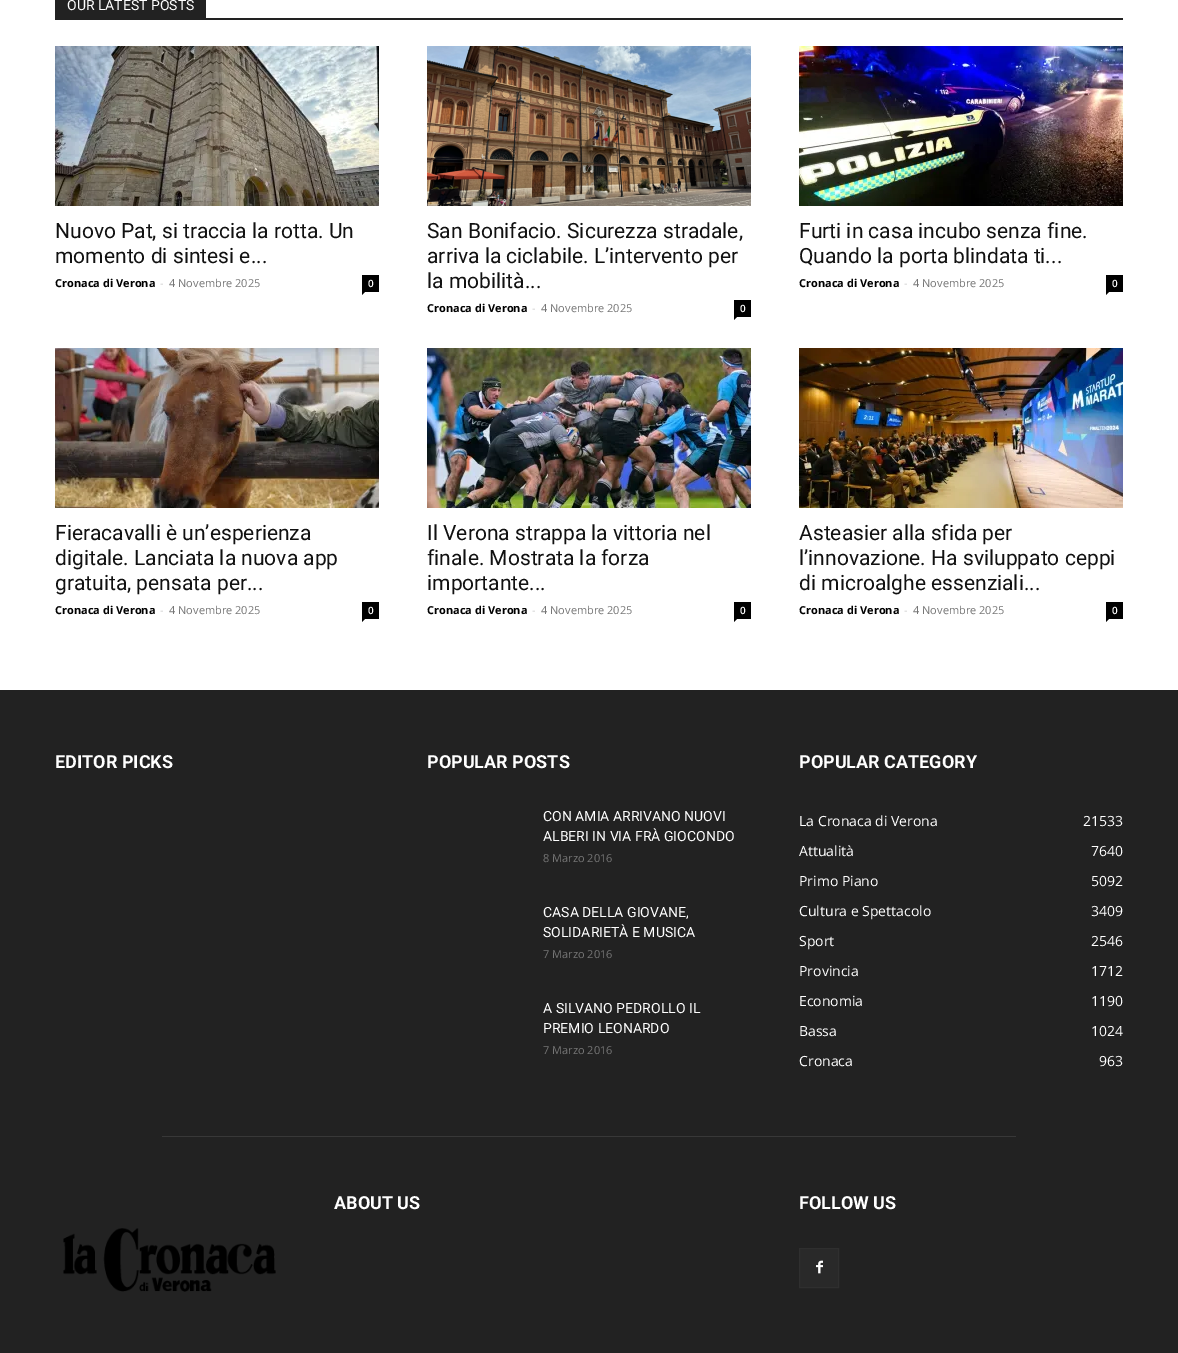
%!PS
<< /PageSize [1178 1353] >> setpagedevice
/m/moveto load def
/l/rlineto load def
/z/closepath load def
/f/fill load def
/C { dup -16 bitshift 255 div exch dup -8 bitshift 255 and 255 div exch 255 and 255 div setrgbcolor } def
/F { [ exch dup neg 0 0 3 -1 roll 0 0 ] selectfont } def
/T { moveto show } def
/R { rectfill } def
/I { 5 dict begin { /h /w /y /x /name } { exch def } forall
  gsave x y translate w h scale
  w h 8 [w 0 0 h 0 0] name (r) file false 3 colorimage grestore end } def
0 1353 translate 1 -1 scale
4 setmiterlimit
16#FFFFFF C
0 0 1178 1353 R
16#222222 C
55 18 1068 2 R
55 0 151 18 R
/Roboto-Regular 14 F
16#FFFFFF C
(OUR LATEST POSTS) 67 10 T
(1.rgb) 55 46 324 160 I
/Roboto-Regular 21 F
16#111111 C
(Nuovo Pat, si traccia la rotta. Un) 55 238 T
(momento di sintesi e...) 55 263 T
/OpenSans-Bold 11 F
16#000000 C
(Cronaca di Verona) 55 287 T
/OpenSans-Regular 11 F
16#CCCCCC C
(-) 160 287 T
16#767676 C
(4 Novembre 2025) 169 287 T
16#000000 C
362 275 17 17 R
/OpenSans-SemiBold 10 F
16#FFFFFF C
(0) 368 287 T
16#000000 C
362 292 m 3 0 l -3 3 l z f
(2.rgb) 427 46 324 160 I
/Roboto-Regular 21 F
16#111111 C
(San Bonifacio. Sicurezza stradale,) 427 238 T
(arriva la ciclabile. L’intervento per) 427 263 T
(la mobilità...) 427 288 T
/OpenSans-Bold 11 F
16#000000 C
(Cronaca di Verona) 427 312 T
/OpenSans-Regular 11 F
16#CCCCCC C
(-) 532 312 T
16#767676 C
(4 Novembre 2025) 541 312 T
16#000000 C
734 300 17 17 R
/OpenSans-SemiBold 10 F
16#FFFFFF C
(0) 740 312 T
16#000000 C
734 317 m 3 0 l -3 3 l z f
(3.rgb) 799 46 324 160 I
/Roboto-Regular 21 F
16#111111 C
(Furti in casa incubo senza fine.) 799 238 T
(Quando la porta blindata ti...) 799 263 T
/OpenSans-Bold 11 F
16#000000 C
(Cronaca di Verona) 799 287 T
/OpenSans-Regular 11 F
16#CCCCCC C
(-) 904 287 T
16#767676 C
(4 Novembre 2025) 913 287 T
16#000000 C
1106 275 17 17 R
/OpenSans-SemiBold 10 F
16#FFFFFF C
(0) 1112 287 T
16#000000 C
1106 292 m 3 0 l -3 3 l z f
(4.rgb) 55 348 324 160 I
/Roboto-Regular 21 F
16#111111 C
(Fieracavalli è un’esperienza) 55 540 T
(digitale. Lanciata la nuova app) 55 565 T
(gratuita, pensata per...) 55 590 T
/OpenSans-Bold 11 F
16#000000 C
(Cronaca di Verona) 55 614 T
/OpenSans-Regular 11 F
16#CCCCCC C
(-) 160 614 T
16#767676 C
(4 Novembre 2025) 169 614 T
16#000000 C
362 602 17 17 R
/OpenSans-SemiBold 10 F
16#FFFFFF C
(0) 368 614 T
16#000000 C
362 619 m 3 0 l -3 3 l z f
(5.rgb) 427 348 324 160 I
/Roboto-Regular 21 F
16#111111 C
(Il Verona strappa la vittoria nel) 427 540 T
(finale. Mostrata la forza) 427 565 T
(importante...) 427 590 T
/OpenSans-Bold 11 F
16#000000 C
(Cronaca di Verona) 427 614 T
/OpenSans-Regular 11 F
16#CCCCCC C
(-) 532 614 T
16#767676 C
(4 Novembre 2025) 541 614 T
16#000000 C
734 602 17 17 R
/OpenSans-SemiBold 10 F
16#FFFFFF C
(0) 740 614 T
16#000000 C
734 619 m 3 0 l -3 3 l z f
(6.rgb) 799 348 324 160 I
/Roboto-Regular 21 F
16#111111 C
(Asteasier alla sfida per) 799 540 T
(l’innovazione. Ha sviluppato ceppi) 799 565 T
(di microalghe essenziali...) 799 590 T
/OpenSans-Bold 11 F
16#000000 C
(Cronaca di Verona) 799 614 T
/OpenSans-Regular 11 F
16#CCCCCC C
(-) 904 614 T
16#767676 C
(4 Novembre 2025) 913 614 T
16#000000 C
1106 602 17 17 R
/OpenSans-SemiBold 10 F
16#FFFFFF C
(0) 1112 614 T
16#000000 C
1106 619 m 3 0 l -3 3 l z f
16#222222 C
0 690 1178 663 R
/Roboto-Bold 18 F
16#FFFFFF C
(EDITOR PICKS) 55 768 T
(POPULAR POSTS) 427 768 T
/Roboto-Regular 14 F
(CON AMIA ARRIVANO NUOVI) 543 821 T
(ALBERI IN VIA FRÀ GIOCONDO) 543 841 T
/OpenSans-Regular 11 F
16#767676 C
(8 Marzo 2016) 543 862 T
/Roboto-Regular 14 F
16#FFFFFF C
(CASA DELLA GIOVANE,) 543 917 T
(SOLIDARIETÀ E MUSICA) 543 937 T
/OpenSans-Regular 11 F
16#767676 C
(7 Marzo 2016) 543 958 T
/Roboto-Regular 14 F
16#FFFFFF C
(A SILVANO PEDROLLO IL) 543 1013 T
(PREMIO LEONARDO) 543 1033 T
/OpenSans-Regular 11 F
16#767676 C
(7 Marzo 2016) 543 1054 T
/Roboto-Bold 18 F
16#FFFFFF C
(POPULAR CATEGORY) 799 768 T
/OpenSans-Regular 14 F
(La Cronaca di Verona) 799 826 T
(21533) 1083 826 T
(Attualità) 799 856 T
(7640) 1091 856 T
(Primo Piano) 799 886 T
(5092) 1091 886 T
(Cultura e Spettacolo) 799 916 T
(3409) 1091 916 T
(Sport) 799 946 T
(2546) 1091 946 T
(Provincia) 799 976 T
(1712) 1091 976 T
(Economia) 799 1006 T
(1190) 1091 1006 T
(Bassa) 799 1036 T
(1024) 1091 1036 T
(Cronaca) 799 1066 T
(963) 1099 1066 T
16#383838 C
162 1136 854 1 R
/Roboto-Bold 18 F
16#FFFFFF C
(ABOUT US) 334 1209 T
(FOLLOW US) 799 1209 T
16#292929 C
800 1249 38 38 R
(7.rgb) 816 1260 7 14 I
16#2F2F2F C
799.5 1248.5 39 39 rectstroke
(8.rgb) 63 1228 213 64 I
showpage
